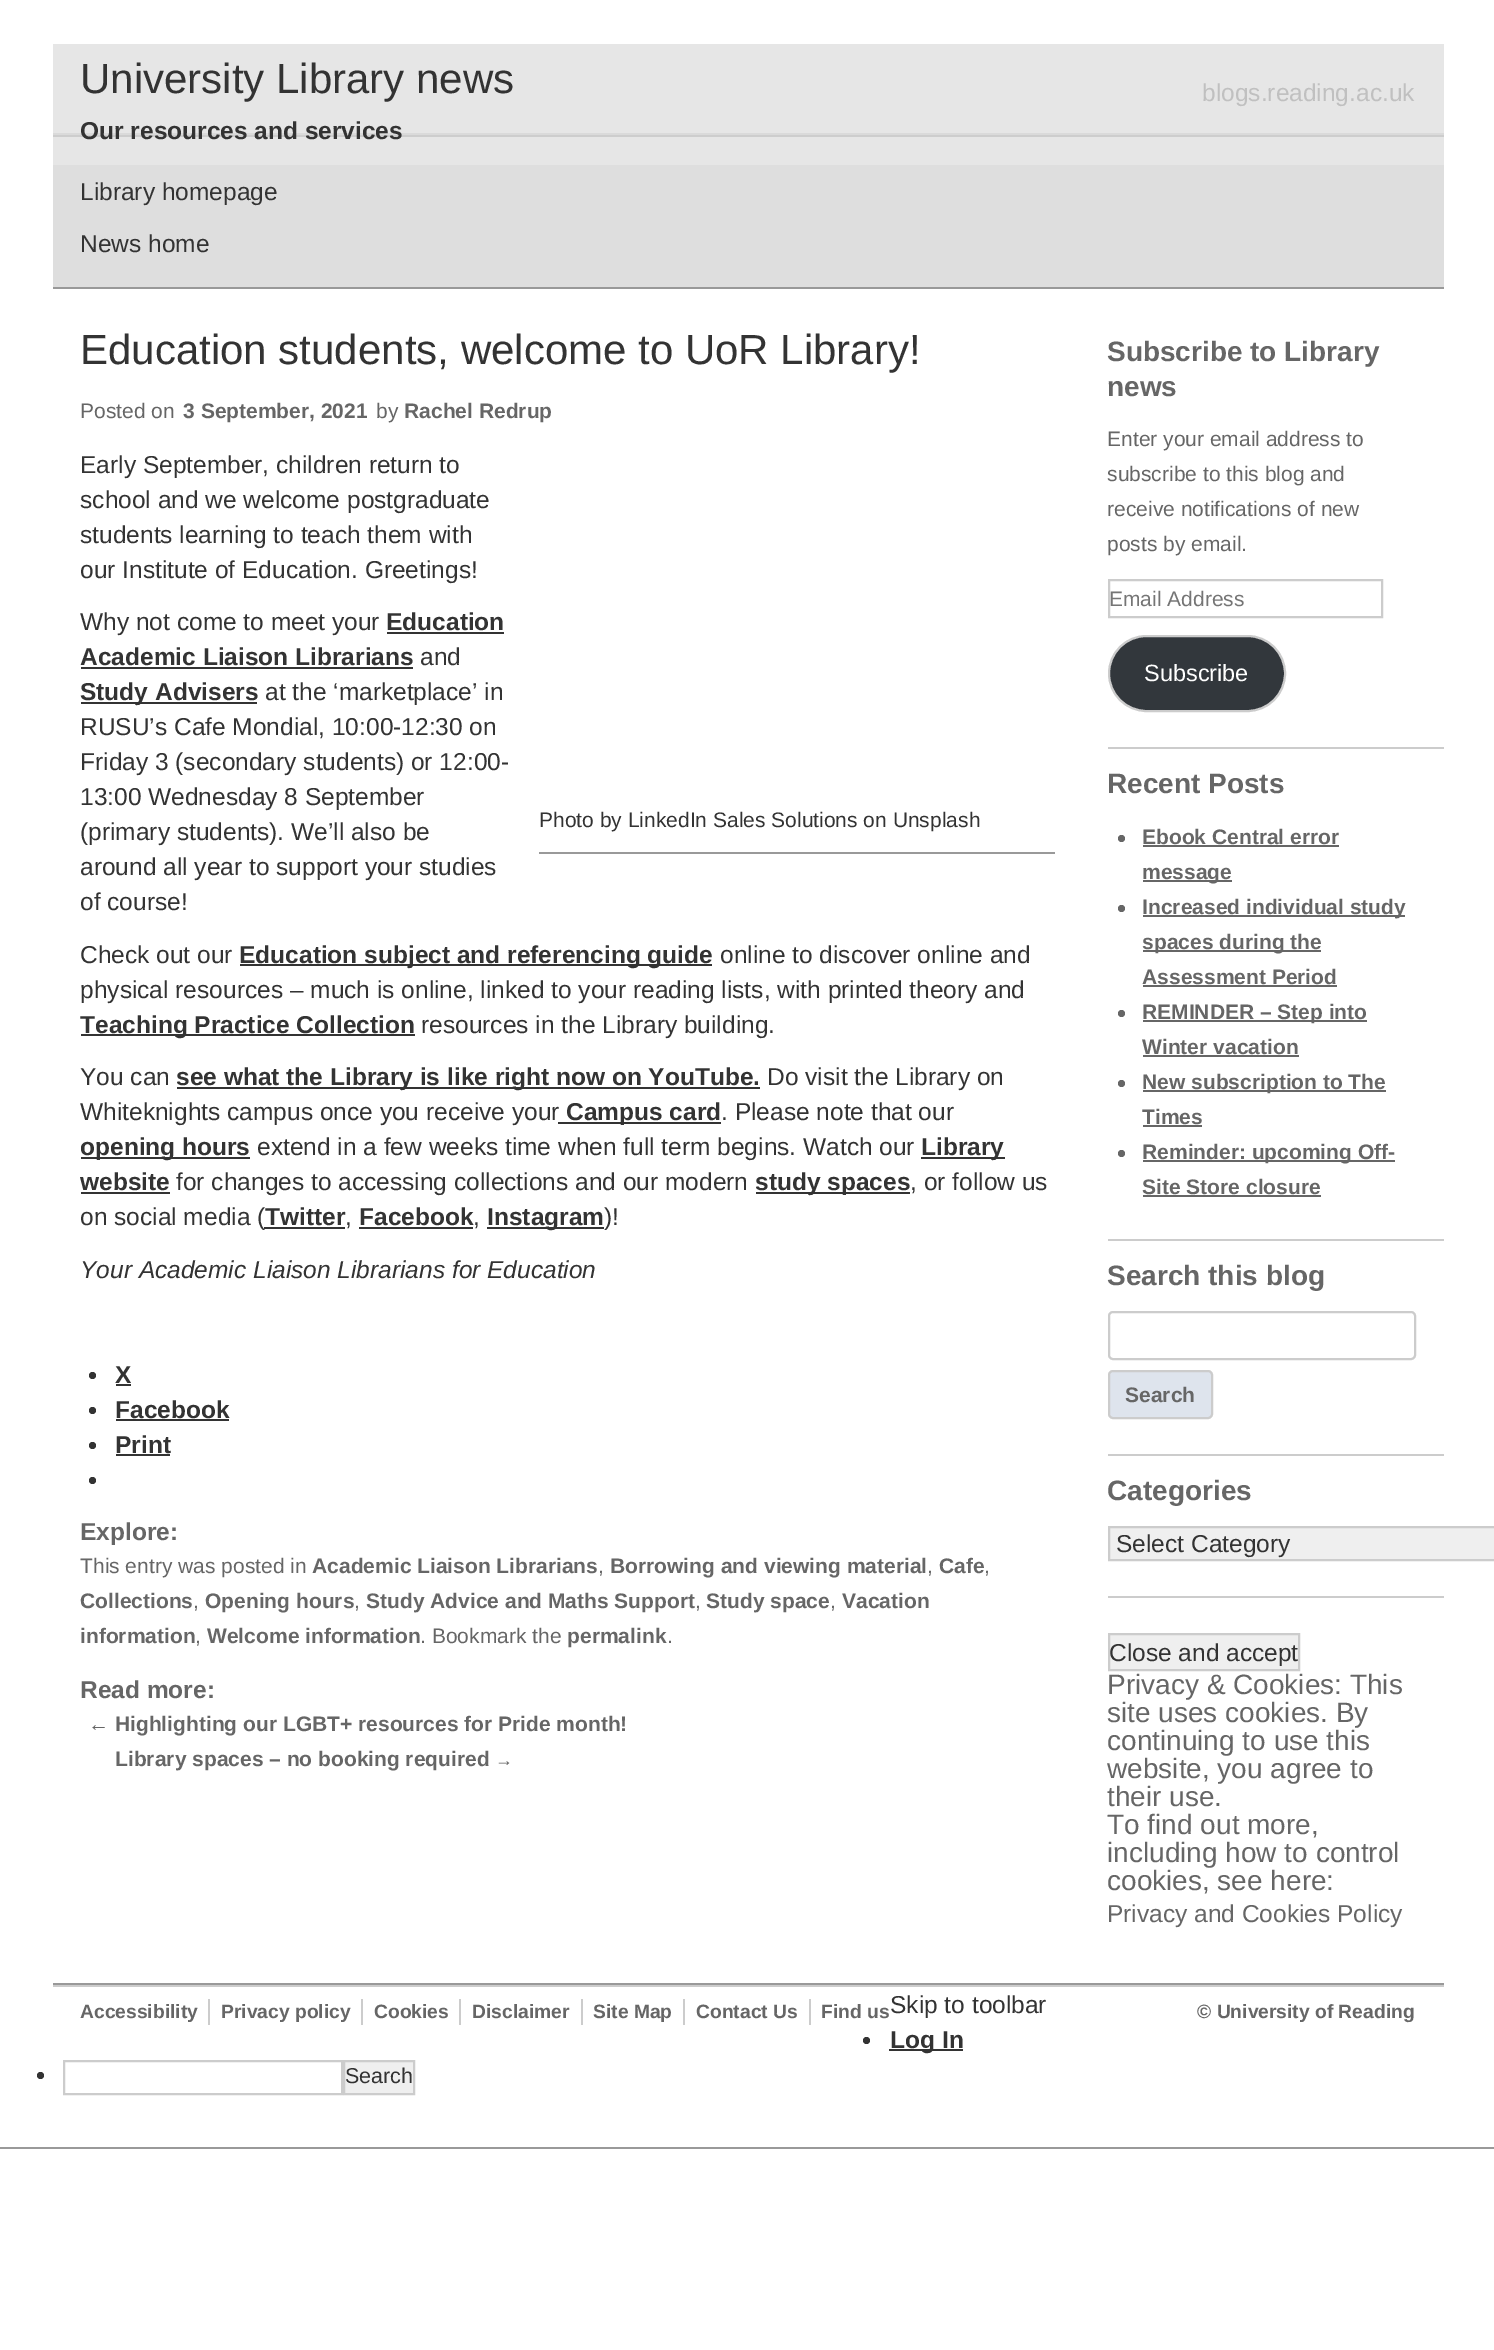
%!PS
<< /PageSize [1494 2350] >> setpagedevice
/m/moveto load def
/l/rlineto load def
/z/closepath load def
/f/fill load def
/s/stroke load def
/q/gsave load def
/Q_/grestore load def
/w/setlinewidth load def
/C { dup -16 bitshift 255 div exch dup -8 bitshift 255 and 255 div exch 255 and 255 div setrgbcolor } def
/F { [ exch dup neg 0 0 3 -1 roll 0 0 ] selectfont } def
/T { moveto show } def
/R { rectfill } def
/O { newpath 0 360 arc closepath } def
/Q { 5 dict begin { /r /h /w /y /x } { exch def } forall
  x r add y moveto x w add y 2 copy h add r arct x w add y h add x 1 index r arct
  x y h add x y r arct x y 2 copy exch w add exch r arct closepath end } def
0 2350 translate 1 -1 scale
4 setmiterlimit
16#FFFFFF C
0 0 1494 2350 R
16#E6E6E6 C
53 44 1391 121 R
16#CDCDCD C
53 135 1391 2 R
/LiberationSans-Regular 42 F
16#333333 C
(University Library news) 80 93 T
16#DADADA C
53 133 1391 2 R
/LiberationSans-Bold 24.5 F
16#333333 C
(Our resources and services) 80 139 T
/LiberationSans-Regular 24.5 F
16#C0C0C0 C
(blogs.reading.ac.uk) 1202 101 T
16#DEDEDE C
53 165 1391 122 R
16#999999 C
53 287 1391 2 R
16#333333 C
(Library homepage) 80 200 T
(News home) 80 252 T
16#999999 C
53 1983 1391 2 R
/LiberationSans-Regular 42 F
16#333333 C
(Education students, welcome to UoR Library!) 80 364 T
/LiberationSans-Regular 21 F
16#666666 C
(Posted on) 80 418 T
/LiberationSans-Bold 21 F
(3 September, 2021) 183 418 T
/LiberationSans-Regular 21 F
(by) 376 418 T
/LiberationSans-Bold 21 F
(Rachel Redrup) 404 418 T
/LiberationSans-Regular 24.5 F
16#333333 C
(Early September, children return to) 80 473 T
(school and we welcome postgraduate) 80 508 T
(students learning to teach them with) 80 543 T
(our Institute of Education. Greetings!) 80 578 T
(Why not come to meet your) 80 630 T
/LiberationSans-Bold 24.5 F
(Education) 386 630 T
387 632 117 2 R
(Academic Liaison Librarians) 80 665 T
81 667 332 2 R
/LiberationSans-Regular 24.5 F
(and) 420 665 T
81 702 176 2 R
/LiberationSans-Bold 24.5 F
(Study Advisers) 80 700 T
/LiberationSans-Regular 24.5 F
(at the ‘marketplace’ in) 265 700 T
(RUSU’s Cafe Mondial, 10:00-12:30 on) 80 735 T
(Friday 3 \(secondary students\) or 12:00-) 80 770 T
(13:00 Wednesday 8 September) 80 805 T
(\(primary students\). We’ll also be) 80 840 T
(around all year to support your studies) 80 875 T
(of course!) 80 910 T
16#999999 C
539 852 516 2 R
/LiberationSans-Regular 21 F
16#333333 C
(Photo by LinkedIn Sales Solutions on Unsplash) 539 827 T
/LiberationSans-Regular 24.5 F
(Check out our) 80 963 T
240 964 472 2 R
/LiberationSans-Bold 24.5 F
(Education subject and referencing guide) 239 963 T
/LiberationSans-Regular 24.5 F
(online to discover online and) 720 963 T
(physical resources – much is online, linked to your reading lists, with printed theory and) 80 998 T
81 1034 334 2 R
/LiberationSans-Bold 24.5 F
(Teaching Practice Collection) 80 1033 T
/LiberationSans-Regular 24.5 F
(resources in the Library building.) 421 1033 T
(You can) 80 1085 T
177 1087 583 2 R
/LiberationSans-Bold 24.5 F
(see what the Library is like right now on YouTube.) 176 1085 T
/LiberationSans-Regular 24.5 F
(Do visit the Library on) 767 1085 T
(Whiteknights campus once you receive your) 80 1120 T
558 1122 163 2 R
/LiberationSans-Bold 24.5 F
(Campus card) 566 1120 T
/LiberationSans-Regular 24.5 F
(. Please note that our) 721 1120 T
81 1157 169 2 R
/LiberationSans-Bold 24.5 F
(opening hours) 80 1155 T
/LiberationSans-Regular 24.5 F
(extend in a few weeks time when full term begins. Watch our) 257 1155 T
921 1157 84 2 R
/LiberationSans-Bold 24.5 F
(Library) 921 1155 T
(website) 80 1190 T
81 1192 89 2 R
/LiberationSans-Regular 24.5 F
(for changes to accessing collections and our modern) 176 1190 T
756 1192 154 2 R
/LiberationSans-Bold 24.5 F
(study spaces) 755 1190 T
/LiberationSans-Regular 24.5 F
(, or follow us) 910 1190 T
(on social media \() 80 1225 T
/LiberationSans-Bold 24.5 F
(Twitter) 265 1225 T
264 1227 81 2 R
/LiberationSans-Regular 24.5 F
(,) 345 1225 T
/LiberationSans-Bold 24.5 F
(Facebook) 359 1225 T
359 1227 114 2 R
/LiberationSans-Regular 24.5 F
(,) 473 1225 T
487 1227 117 2 R
/LiberationSans-Bold 24.5 F
(Instagram) 487 1225 T
/LiberationSans-Regular 24.5 F
(\)!) 604 1225 T
/LiberationSans-Italic 24.5 F
(Your Academic Liaison Librarians for Education) 80 1278 T
92.5 1375.5 3.5 O f
/LiberationSans-Bold 24.5 F
(X) 115 1383 T
116 1384 15 2 R
92.5 1410.5 3.5 O f
(Facebook) 115 1418 T
116 1419 113 2 R
92.5 1445.5 3.5 O f
(Print) 115 1453 T
116 1454 54 2 R
92.5 1480.5 3.5 O f
16#666666 C
(Explore:) 80 1540 T
/LiberationSans-Regular 21 F
(This entry was posted in) 80 1573 T
/LiberationSans-Bold 21 F
(Academic Liaison Librarians) 312 1573 T
/LiberationSans-Regular 21 F
(,) 598 1573 T
/LiberationSans-Bold 21 F
(Borrowing and viewing material) 610 1573 T
/LiberationSans-Regular 21 F
(,) 927 1573 T
/LiberationSans-Bold 21 F
(Cafe) 939 1573 T
/LiberationSans-Regular 21 F
(,) 984 1573 T
/LiberationSans-Bold 21 F
(Collections) 80 1608 T
/LiberationSans-Regular 21 F
(,) 193 1608 T
/LiberationSans-Bold 21 F
(Opening hours) 205 1608 T
/LiberationSans-Regular 21 F
(,) 354 1608 T
/LiberationSans-Bold 21 F
(Study Advice and Maths Support) 366 1608 T
/LiberationSans-Regular 21 F
(,) 695 1608 T
/LiberationSans-Bold 21 F
(Study space) 706 1608 T
/LiberationSans-Regular 21 F
(,) 830 1608 T
/LiberationSans-Bold 21 F
(Vacation) 842 1608 T
(information) 80 1643 T
/LiberationSans-Regular 21 F
(,) 195 1643 T
/LiberationSans-Bold 21 F
(Welcome information) 207 1643 T
/LiberationSans-Regular 21 F
(. Bookmark the) 420 1643 T
/LiberationSans-Bold 21 F
(permalink) 567 1643 T
/LiberationSans-Regular 21 F
(.) 667 1643 T
/LiberationSans-Bold 24.5 F
(Read more:) 80 1698 T
/LiberationSans-Bold 21 F
(← Highlighting our LGBT+ resources for Pride month!) 88 1731 T
(Library spaces – no booking required) 115 1766 T
/LiberationSans-Bold 18 F
(→) 495 1766 T
/LiberationSans-Bold 28 F
(Subscribe to Library) 1107 361 T
(news) 1107 396 T
/LiberationSans-Regular 21 F
(Enter your email address to) 1107 446 T
(subscribe to this blog and) 1107 481 T
(receive notifications of new) 1107 516 T
(posts by email.) 1107 551 T
16#CCCCCC C
2 w
1109 580 273 37 rectstroke
16#757575 C
(Email Address) 1109 606 T
16#32373C C
1109 636 176 75 37.5 Q q f Q_
16#CCCCCC C
s
/LiberationSans-Regular 23.5 F
16#FFFFFF C
(Subscribe) 1144 681 T
16#CCCCCC C
1108 747 336 2 R
/LiberationSans-Bold 28 F
16#666666 C
(Recent Posts) 1107 793 T
1121.5 838.5 3.5 O f
/LiberationSans-Bold 21 F
(Ebook Central error) 1142 844 T
1143 845 196 2 R
1143 880 89 2 R
(message) 1142 879 T
1121.5 908.5 3.5 O f
1143 915 262 2 R
(Increased individual study) 1142 914 T
1143 950 178 2 R
(spaces during the) 1142 949 T
(Assessment Period) 1142 984 T
1143 985 194 2 R
1121.5 1013.5 3.5 O f
1143 1020 224 2 R
(REMINDER – Step into) 1142 1019 T
(Winter vacation) 1142 1054 T
1143 1055 156 2 R
1121.5 1083.5 3.5 O f
1143 1090 243 2 R
(New subscription to The) 1142 1089 T
(Times) 1142 1124 T
1143 1125 59 2 R
1121.5 1153.5 3.5 O f
1143 1160 252 2 R
(Reminder: upcoming Off-) 1142 1159 T
(Site Store closure) 1142 1194 T
1143 1195 178 2 R
16#CCCCCC C
1108 1239 336 2 R
/LiberationSans-Bold 28 F
16#666666 C
(Search this blog) 1107 1285 T
16#CCCCCC C
1109 1312 306 47 4 Q s
16#DEE4ED C
1109 1371 103 47 4 Q q f Q_
16#CCCCCC C
s
/LiberationSans-Bold 21 F
16#666666 C
(Search) 1125 1402 T
16#CCCCCC C
1108 1454 336 2 R
/LiberationSans-Bold 28 F
16#666666 C
(Categories) 1107 1500 T
16#EFEFEF C
1109 1527 m 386 0 l 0 33 l -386 0 l z q f Q_
16#CCCCCC C
s
/LiberationSans-Regular 24.5 F
16#333333 C
(Select Category) 1116 1552 T
16#CCCCCC C
1108 1596 336 2 R
16#EFEFEF C
1109 1634 m 190 0 l 0 36 l -190 0 l z q f Q_
16#CCCCCC C
s
16#333333 C
(Close and accept) 1109 1661 T
/LiberationSans-Regular 28 F
16#666666 C
(Privacy & Cookies: This) 1107 1694 T
(site uses cookies. By) 1107 1722 T
(continuing to use this) 1107 1750 T
(website, you agree to) 1107 1778 T
(their use.) 1107 1806 T
(To find out more,) 1107 1834 T
(including how to control) 1107 1862 T
(cookies, see here:) 1107 1890 T
/LiberationSans-Regular 24.5 F
(Privacy and Cookies Policy) 1107 1922 T
16#CCCCCC C
53 1985 1391 2 R
208 1999 2 26 R
/LiberationSans-Bold 19.25 F
16#666666 C
(Accessibility) 80 2018 T
16#CCCCCC C
361 1999 2 26 R
16#666666 C
(Privacy policy) 221 2018 T
16#CCCCCC C
459 1999 2 26 R
16#666666 C
(Cookies) 374 2018 T
16#CCCCCC C
581 1999 2 26 R
16#666666 C
(Disclaimer) 472 2018 T
16#CCCCCC C
683 1999 2 26 R
16#666666 C
(Site Map) 593 2018 T
16#CCCCCC C
809 1999 2 26 R
16#666666 C
(Contact Us) 696 2018 T
(Find us) 821 2018 T
(© University of Reading) 1197 2018 T
/LiberationSans-Regular 24.5 F
16#333333 C
(Skip to toolbar) 890 2013 T
16#999999 C
0 2147 1494 2 R
16#333333 C
866.5 2040.5 3.5 O f
889 2049 74 2 R
/LiberationSans-Bold 24.5 F
(Log In) 890 2048 T
40.5 2075.5 3.5 O f
16#CCCCCC C
64 2061 278 33 rectstroke
16#EFEFEF C
344 2061 m 70 0 l 0 33 l -70 0 l z q f Q_
16#CCCCCC C
s
/LiberationSans-Regular 21.5 F
16#333333 C
(Search) 345 2083 T
showpage
